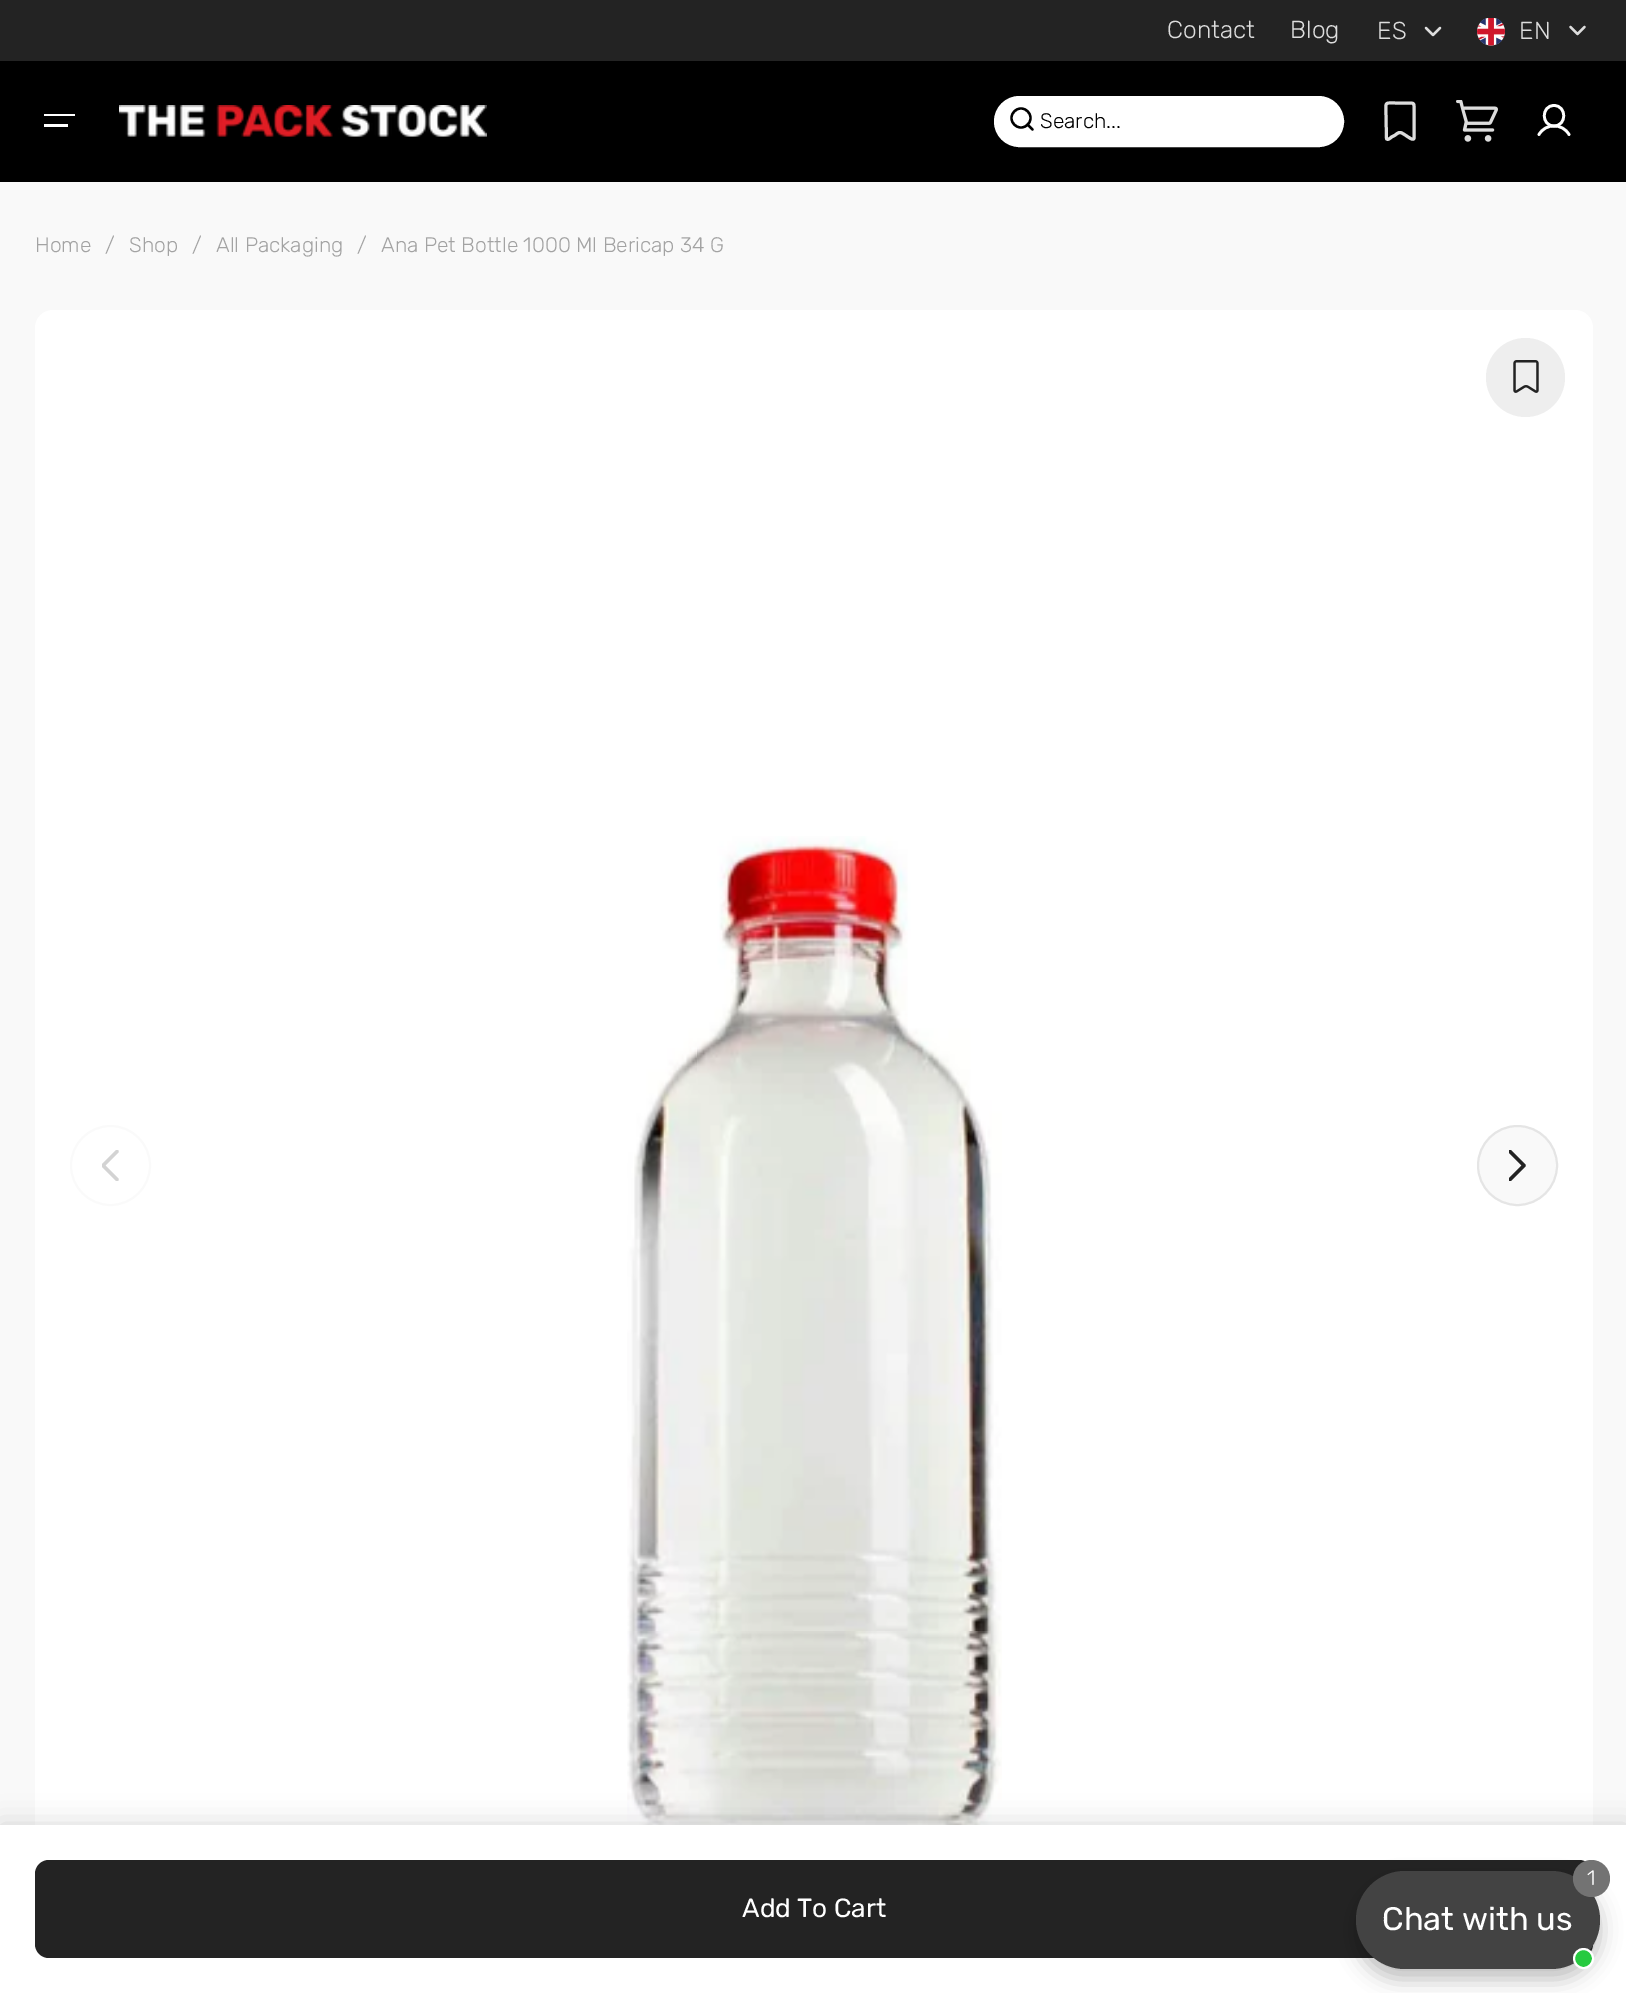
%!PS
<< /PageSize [1626 1993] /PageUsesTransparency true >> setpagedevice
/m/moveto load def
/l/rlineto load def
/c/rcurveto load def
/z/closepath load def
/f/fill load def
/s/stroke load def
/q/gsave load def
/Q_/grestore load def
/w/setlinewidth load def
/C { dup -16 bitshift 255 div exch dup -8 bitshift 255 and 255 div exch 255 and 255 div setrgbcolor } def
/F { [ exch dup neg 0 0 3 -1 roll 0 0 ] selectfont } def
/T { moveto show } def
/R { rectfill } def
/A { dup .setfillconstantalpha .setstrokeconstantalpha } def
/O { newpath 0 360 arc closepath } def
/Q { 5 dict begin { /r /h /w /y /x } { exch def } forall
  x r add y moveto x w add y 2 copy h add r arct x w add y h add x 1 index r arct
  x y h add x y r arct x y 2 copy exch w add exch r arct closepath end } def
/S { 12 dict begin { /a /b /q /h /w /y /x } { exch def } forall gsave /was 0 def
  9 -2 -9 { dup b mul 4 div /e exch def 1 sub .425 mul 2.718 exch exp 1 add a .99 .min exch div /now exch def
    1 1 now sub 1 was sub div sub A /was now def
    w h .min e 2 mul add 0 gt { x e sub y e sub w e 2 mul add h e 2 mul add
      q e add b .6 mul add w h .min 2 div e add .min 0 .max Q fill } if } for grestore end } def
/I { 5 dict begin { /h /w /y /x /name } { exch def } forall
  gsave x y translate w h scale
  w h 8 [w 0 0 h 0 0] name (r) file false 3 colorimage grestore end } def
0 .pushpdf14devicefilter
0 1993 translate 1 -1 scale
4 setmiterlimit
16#F9F9F9 C
0 0 1626 1993 R
16#000000 C
0 61 1626 121 R
16#232323 C
0 0 1626 61 R
/Rubik-Light 24.5 F
16#DDDDDD C
(Contact) 1167 38 T
(Blog) 1290 38 T
(ES) 1377 39 T
2.3 w
1 setlinecap
1 setlinejoin
1440 28 m -7 7 l -7 -7 l s
(1.rgb) 1477 18 28 28 I
(EN) 1519 39 T
1584.5 27 m -7 7 l -7 -7 l s
16#FFFFFF C
44 114 31 2 R
44 124 24 3 R
(2.rgb) 119 105 368 32 I
995 97 348 49 24.5 Q q f Q_
2 w
0 setlinecap
0 setlinejoin
s
16#000000 C
2.3 w
1 setlinecap
1 setlinejoin
1032.5 129.5 m -5 -5 l s
0 setlinecap
0 setlinejoin
1021 118 9.5 O s
/Rubik-Light 21 F
(Search...) 1040 128 T
16#DDDDDD C
3 w
1 setlinejoin
1414 138 m 0 5 -10.5 -5.5 -14 -5.5 c -2 0 -4 2 -5.5 3 c -3 1.5 l -1 1 -4.5 4 -5 1.5 c -.5 -22.5 l 0 -14.5 -2.5 -13 10 -13 c 11.5 0 l 7.5 0 6.5 0 6.5 7.5 c z s
(3.rgb) 1456 100 42 42 I
16#FFFFFF C
2.7 w
0 setlinejoin
1554 126 m 13 0 13 -20.5 0 -20.5 c -13 0 -13 20.5 0 20.5 c z s
1 setlinecap
1 setlinejoin
1539 134.5 m 6.5 -11.5 23.5 -11.5 30 0 c s
16#A3A3A3 C
(Home) 35 252 T
(/) 105 252 T
(Shop) 129 252 T
(/) 192 252 T
(All Packaging) 216 252 T
(/) 357 252 T
(Ana Pet Bottle 1000 Ml Bericap 34 G) 381 252 T
16#FFFFFF C
35 310 1558 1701 18 Q f
16#EEEEEE C
1525.5 377.5 39.5 O f
(4.rgb) 1513 360 26 33 I
(5.rgb) 627 836 375 989 I
16#FAFAFA C
2 w
0 setlinecap
0 setlinejoin
110.5 1165.5 39.5 O s
q
102 1150 17 31 rectclip
16#D3D3D3 C
3.5 w
1 setlinecap
1 setlinejoin
117 1179.5 m -14 -14 l 14 -14 l s
Q_
16#F9F9F9 C
1517.5 1165.5 39.5 O q f Q_
16#E5E5E5 C
s
q
1509 1150 17 31 rectclip
16#232323 C
3.5 w
1 setlinecap
1 setlinejoin
1510 1151.5 m 14 14 l -14 14 l s
Q_
16#000000 C
0 1825 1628 168 0 14 .15 S
16#FFFFFF C
0 1825 1626 168 R
16#232323 C
35 1860 1558 98 14 Q f
/Rubik-Regular 26.25 F
16#FFFFFF C
(Add To Cart) 742 1917 T
16#000000 C
1356 1881 244 98 49 10.5 .25 S
16#434343 C
1356 1871 244 98 49 Q f
16#737373 C
1591.5 1878.5 18.5 O f
/Rubik-Light 21 F
16#FFFFFF C
(1) 1587 1885 T
/Rubik-Regular 32.5 F
(Chat with us) 1382 1930 T
16#27CA40 C
1583.5 1958.5 9.5 O q f Q_
16#FFFFFF C
s
.poppdf14devicefilter showpage
